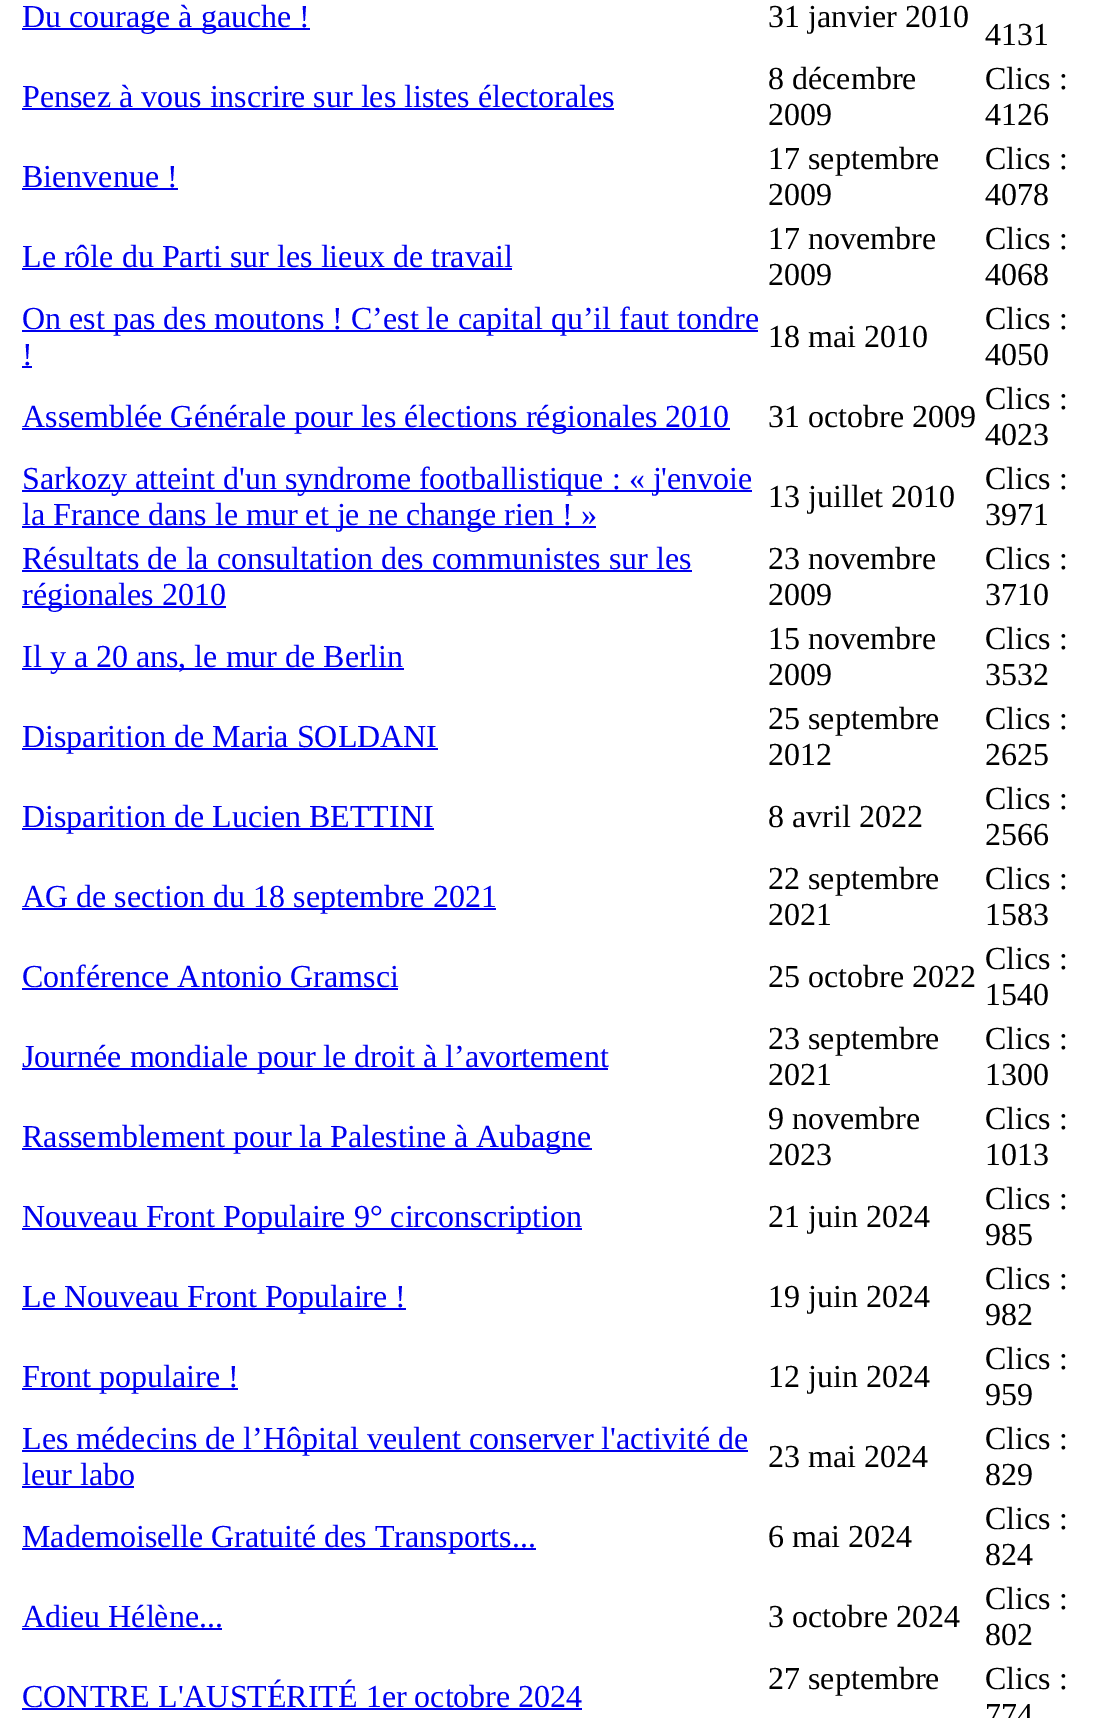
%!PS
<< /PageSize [1116 1718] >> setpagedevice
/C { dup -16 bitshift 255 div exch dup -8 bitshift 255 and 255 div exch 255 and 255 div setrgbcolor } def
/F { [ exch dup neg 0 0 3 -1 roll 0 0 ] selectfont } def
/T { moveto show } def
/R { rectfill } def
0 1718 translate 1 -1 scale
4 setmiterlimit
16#FFFFFF C
0 0 1116 1718 R
16#0000EE C
22 28 288 2 R
/LiberationSerif-Regular 32 F
(Du courage à gauche !) 22 27 T
16#000000 C
(31 janvier 2010) 768 27 T
(4131) 985 45 T
16#0000EE C
(Pensez à vous inscrire sur les listes électorales) 22 107 T
22 108 592 2 R
16#000000 C
(8 décembre) 768 89 T
(2009) 768 125 T
(Clics :) 985 89 T
(4126) 985 125 T
16#0000EE C
(Bienvenue !) 22 187 T
22 188 156 2 R
16#000000 C
(17 septembre) 768 169 T
(2009) 768 205 T
(Clics :) 985 169 T
(4078) 985 205 T
16#0000EE C
(Le rôle du Parti sur les lieux de travail) 22 267 T
22 268 490 2 R
16#000000 C
(17 novembre) 768 249 T
(2009) 768 285 T
(Clics :) 985 249 T
(4068) 985 285 T
16#0000EE C
22 330 736 2 R
(On est pas des moutons ! C’est le capital qu’il faut tondre) 22 329 T
(!) 22 365 T
22 366 10 2 R
16#000000 C
(18 mai 2010) 768 347 T
(Clics :) 985 329 T
(4050) 985 365 T
16#0000EE C
22 428 708 2 R
(Assemblée Générale pour les élections régionales 2010) 22 427 T
16#000000 C
(31 octobre 2009) 768 427 T
(Clics :) 985 409 T
(4023) 985 445 T
16#0000EE C
22 490 730 2 R
(Sarkozy atteint d'un syndrome footballistique : « j'envoie) 22 489 T
22 526 574 2 R
(la France dans le mur et je ne change rien ! ») 22 525 T
16#000000 C
(13 juillet 2010) 768 507 T
(Clics :) 985 489 T
(3971) 985 525 T
16#0000EE C
(Résultats de la consultation des communistes sur les) 22 569 T
22 570 670 2 R
22 606 204 2 R
(régionales 2010) 22 605 T
16#000000 C
(23 novembre) 768 569 T
(2009) 768 605 T
(Clics :) 985 569 T
(3710) 985 605 T
16#0000EE C
22 668 382 2 R
(Il y a 20 ans, le mur de Berlin) 22 667 T
16#000000 C
(15 novembre) 768 649 T
(2009) 768 685 T
(Clics :) 985 649 T
(3532) 985 685 T
16#0000EE C
22 748 416 2 R
(Disparition de Maria SOLDANI) 22 747 T
16#000000 C
(25 septembre) 768 729 T
(2012) 768 765 T
(Clics :) 985 729 T
(2625) 985 765 T
16#0000EE C
22 828 412 2 R
(Disparition de Lucien BETTINI) 22 827 T
16#000000 C
(8 avril 2022) 768 827 T
(Clics :) 985 809 T
(2566) 985 845 T
16#0000EE C
22 908 474 2 R
(AG de section du 18 septembre 2021) 22 907 T
16#000000 C
(22 septembre) 768 889 T
(2021) 768 925 T
(Clics :) 985 889 T
(1583) 985 925 T
16#0000EE C
(Conférence Antonio Gramsci) 22 987 T
22 988 376 2 R
16#000000 C
(25 octobre 2022) 768 987 T
(Clics :) 985 969 T
(1540) 985 1005 T
16#0000EE C
22 1068 586 2 R
(Journée mondiale pour le droit à l’avortement) 22 1067 T
16#000000 C
(23 septembre) 768 1049 T
(2021) 768 1085 T
(Clics :) 985 1049 T
(1300) 985 1085 T
16#0000EE C
22 1148 570 2 R
(Rassemblement pour la Palestine à Aubagne) 22 1147 T
16#000000 C
(9 novembre) 768 1129 T
(2023) 768 1165 T
(Clics :) 985 1129 T
(1013) 985 1165 T
16#0000EE C
22 1228 560 2 R
(Nouveau Front Populaire 9° circonscription) 22 1227 T
16#000000 C
(21 juin 2024) 768 1227 T
(Clics :) 985 1209 T
(985) 985 1245 T
16#0000EE C
22 1308 384 2 R
(Le Nouveau Front Populaire !) 22 1307 T
16#000000 C
(19 juin 2024) 768 1307 T
(Clics :) 985 1289 T
(982) 985 1325 T
16#0000EE C
22 1388 216 2 R
(Front populaire !) 22 1387 T
16#000000 C
(12 juin 2024) 768 1387 T
(Clics :) 985 1369 T
(959) 985 1405 T
16#0000EE C
22 1450 726 2 R
(Les médecins de l’Hôpital veulent conserver l'activité de) 22 1449 T
(leur labo) 22 1485 T
22 1486 112 2 R
16#000000 C
(23 mai 2024) 768 1467 T
(Clics :) 985 1449 T
(829) 985 1485 T
16#0000EE C
22 1548 514 2 R
(Mademoiselle Gratuité des Transports...) 22 1547 T
16#000000 C
(6 mai 2024) 768 1547 T
(Clics :) 985 1529 T
(824) 985 1565 T
16#0000EE C
(Adieu Hélène...) 22 1627 T
22 1628 200 2 R
16#000000 C
(3 octobre 2024) 768 1627 T
(Clics :) 985 1609 T
(802) 985 1645 T
16#0000EE C
(CONTRE L'AUSTÉRITÉ 1er octobre 2024) 22 1707 T
22 1708 560 2 R
16#000000 C
(27 septembre) 768 1689 T
(Clics :) 985 1689 T
(774) 985 1725 T
showpage
